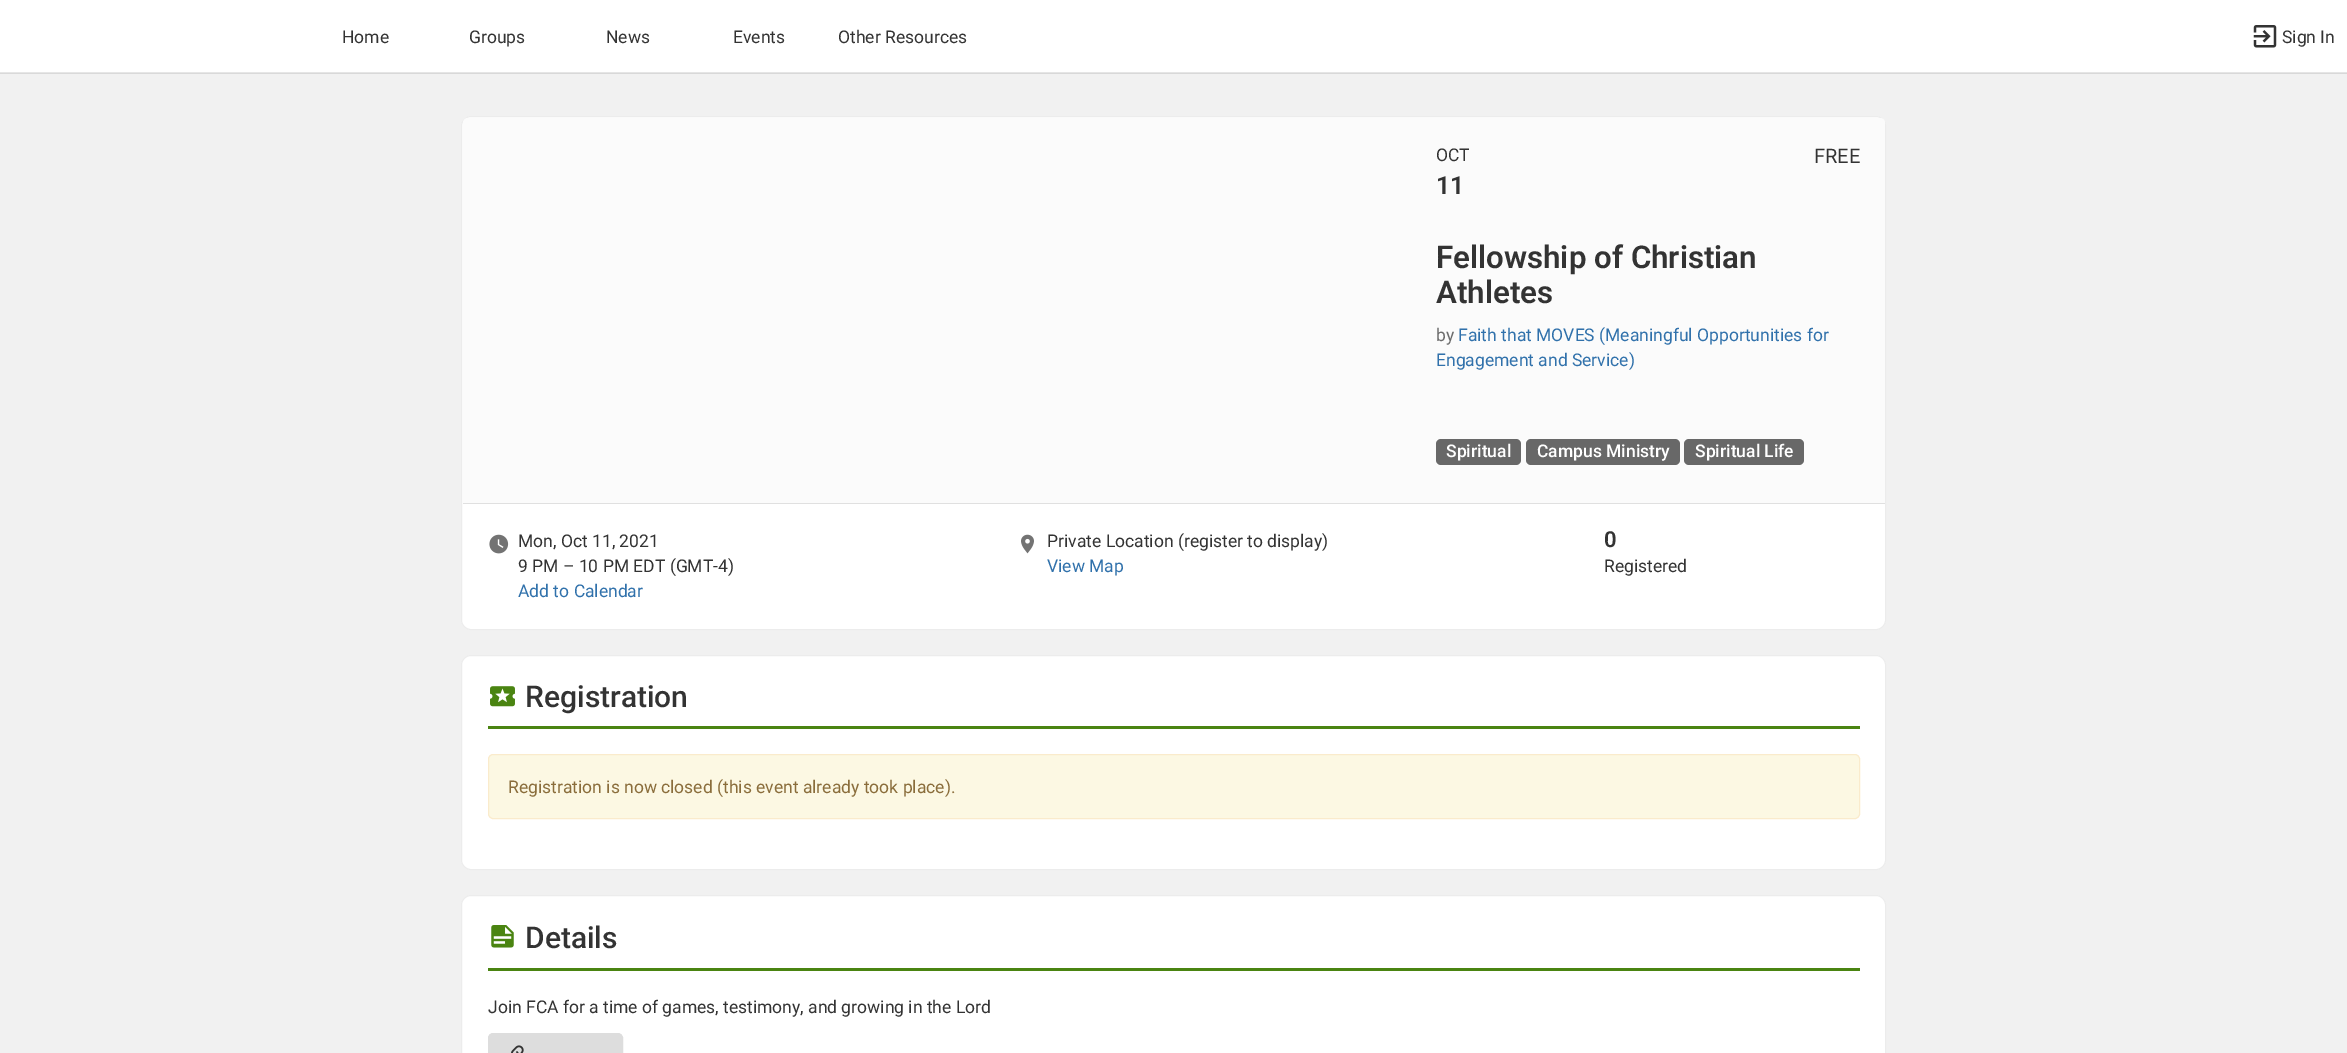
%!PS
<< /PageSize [2347 1053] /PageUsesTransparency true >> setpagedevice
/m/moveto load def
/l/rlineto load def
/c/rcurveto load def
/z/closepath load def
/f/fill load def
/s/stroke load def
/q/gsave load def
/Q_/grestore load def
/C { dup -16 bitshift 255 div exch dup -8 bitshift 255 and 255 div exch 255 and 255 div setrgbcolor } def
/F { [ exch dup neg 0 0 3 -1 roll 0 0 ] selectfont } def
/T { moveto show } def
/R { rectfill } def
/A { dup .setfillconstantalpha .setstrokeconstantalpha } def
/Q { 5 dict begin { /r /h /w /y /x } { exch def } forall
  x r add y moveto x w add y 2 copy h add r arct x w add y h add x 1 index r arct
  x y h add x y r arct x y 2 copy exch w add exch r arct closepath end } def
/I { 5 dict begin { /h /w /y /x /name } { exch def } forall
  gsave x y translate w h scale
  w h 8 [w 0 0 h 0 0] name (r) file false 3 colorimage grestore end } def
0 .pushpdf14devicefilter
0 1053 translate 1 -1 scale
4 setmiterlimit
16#F1F1F1 C
0 0 2347 1053 R
16#D9D9D9 C
0 73 300 1 R
16#FFFFFF C
0 0 2347 73 R
16#E6E6E6 C
0 72 300 1 R
0.1 A
16#000000 C
300 72 m 0 2 l 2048 0 l 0 -73 l 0 71 l z f
/Roboto-Regular 17.5 F
1 A
16#333333 C
(Home) 342 43 T
(Groups) 469 43 T
(News) 606 43 T
(Events) 733 43 T
(Other Resources) 838 43 T
(1.rgb) 2253 25 24 23 I
(Sign In) 2282 43 T
16#FFFFFF C
461.5 116.5 1424 513 9.5 Q q f Q_
16#ECECEC C
s
16#FBFBFB C
468 118 m 1412 0 l 3 0 5 2 5 5 c 0 380 l -1422 0 l 0 -380 l 0 -3 2 -5 5 -5 c z f
16#333333 C
(OCT) 1436 161 T
/Roboto-Regular 20 F
(FREE) 1814 163 T
/Roboto-SemiBold 25 F
(11) 1436 194 T
/Roboto-SemiBold 31.25 F
(Fellowship of Christian) 1436 268 T
(Athletes) 1436 303 T
/Roboto-Regular 17.5 F
16#6C6C6C C
(by) 1436 341 T
16#3071AB C
(Faith that MOVES \(Meaningful Opportunities for) 1458 341 T
(Engagement and Service\)) 1436 366 T
16#686868 C
1436 439 85 26 5 Q f
/Roboto-Medium 17.5 F
16#FFFFFF C
(Spiritual) 1446 457 T
16#686868 C
1526 439 154 26 5 Q f
16#FFFFFF C
(Campus Ministry) 1537 457 T
16#686868 C
1684 439 120 26 5 Q f
16#FFFFFF C
(Spiritual Life) 1695 457 T
16#E0E0E0 C
463 503 1422 1 R
(2.rgb) 489 534 20 20 I
/Roboto-Regular 17.5 F
16#333333 C
(Mon, Oct 11, 2021) 518 547 T
(9 PM – 10 PM EDT \(GMT-4\)) 518 572 T
16#3071AB C
(Add to Calendar) 518 597 T
(3.rgb) 1021 534 13 20 I
16#333333 C
(Private Location \(register to display\)) 1047 547 T
16#3071AB C
(View Map) 1047 572 T
/Roboto-SemiBold 22 F
16#333333 C
(0) 1604 547 T
/Roboto-Regular 17.5 F
(Registered) 1604 572 T
16#FFFFFF C
461.5 655.5 1424 214 9.5 Q q f Q_
16#ECECEC C
s
(4.rgb) 490 686 25 21 I
/Roboto-Medium 30 F
16#333333 C
(Registration) 525 707 T
16#4A8411 C
488 726 1372 3 R
16#FCF8E3 C
488.5 754.5 1371 64 4.5 Q q f Q_
16#FAEBCC C
s
/Roboto-Regular 17.5 F
16#8A6D3B C
(Registration is now closed \(this event already took place\).) 508 793 T
16#FFFFFF C
461.5 895.5 1424 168 9.5 Q q f Q_
16#ECECEC C
s
(5.rgb) 491 925 23 23 I
/Roboto-Medium 30 F
16#333333 C
(Details) 525 948 T
16#4A8411 C
488 968 1372 3 R
/Roboto-Regular 17.5 F
16#333333 C
(Join FCA for a time of games, testimony, and growing in the Lord) 488 1013 T
16#DDDDDD C
488.5 1033.5 134 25 4.5 Q q f Q_
s
(6.rgb) 511 1045 13 8 I
.poppdf14devicefilter showpage
